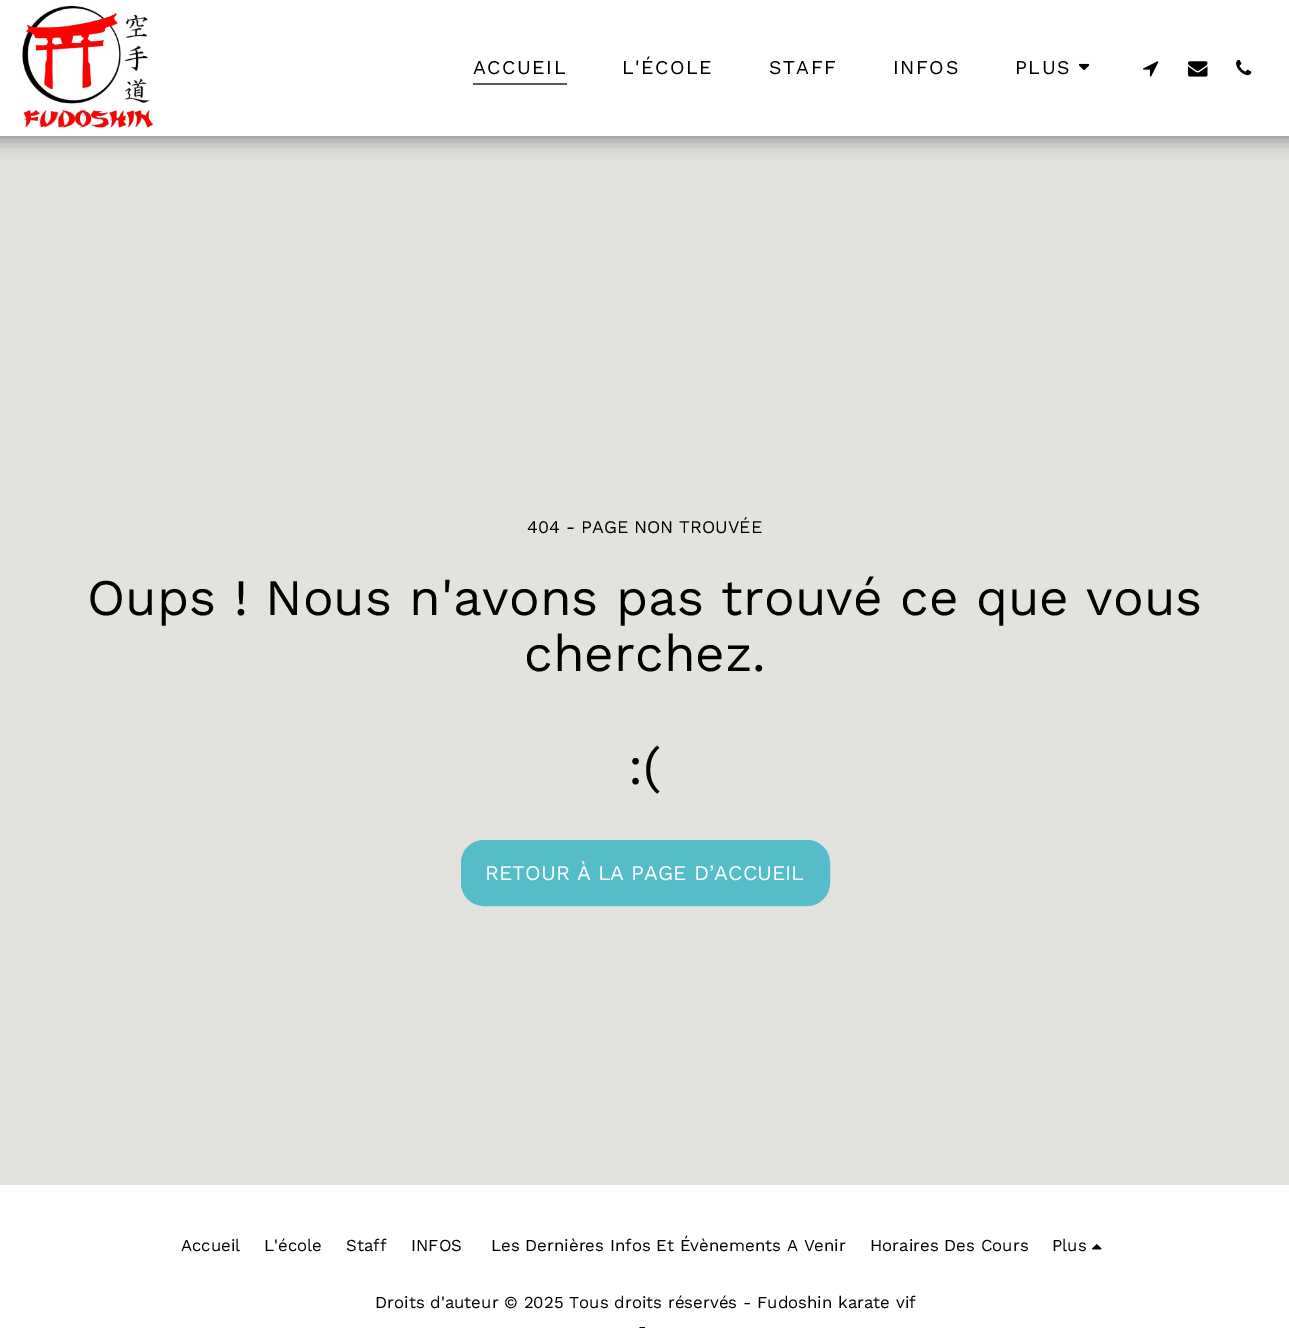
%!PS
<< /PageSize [1289 1328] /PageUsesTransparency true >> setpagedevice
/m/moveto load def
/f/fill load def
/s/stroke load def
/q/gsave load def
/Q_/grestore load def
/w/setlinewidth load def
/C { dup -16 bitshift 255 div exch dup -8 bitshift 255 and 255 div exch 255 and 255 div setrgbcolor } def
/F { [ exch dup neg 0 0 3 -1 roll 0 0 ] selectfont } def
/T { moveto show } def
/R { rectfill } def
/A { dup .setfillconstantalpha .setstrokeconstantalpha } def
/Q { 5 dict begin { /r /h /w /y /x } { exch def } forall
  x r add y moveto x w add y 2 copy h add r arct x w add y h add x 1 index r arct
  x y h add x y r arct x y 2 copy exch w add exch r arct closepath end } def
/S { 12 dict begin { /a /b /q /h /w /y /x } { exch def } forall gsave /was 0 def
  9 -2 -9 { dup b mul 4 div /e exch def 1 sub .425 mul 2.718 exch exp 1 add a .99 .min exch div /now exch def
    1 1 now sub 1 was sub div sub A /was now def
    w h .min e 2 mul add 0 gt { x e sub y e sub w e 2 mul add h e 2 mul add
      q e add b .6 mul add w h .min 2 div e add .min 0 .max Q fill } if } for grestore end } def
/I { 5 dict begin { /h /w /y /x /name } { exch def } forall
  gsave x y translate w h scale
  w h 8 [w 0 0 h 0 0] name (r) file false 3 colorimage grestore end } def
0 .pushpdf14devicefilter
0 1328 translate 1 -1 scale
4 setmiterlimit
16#E3E2DE C
0 0 1289 1328 R
16#000000 C
-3 0 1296 141 0 9 .35 S
16#FFFFFF C
0 0 1289 136 R
(1.rgb) 22 6 131 122 I
/WorkSans-Regular 19.5 F
16#000000 C
473 74 m 1.5 0 (ACCUEIL) ashow
16#5A5A5A C
473 83 94 2 R
16#000000 C
622 74 m 1.5 0 (L'ÉCOLE) ashow
769 74 m 1.5 0 (STAFF) ashow
893 74 m 1.5 0 (INFOS) ashow
1015 74 m 1.5 0 (PLUS) ashow
(2.rgb) 1079 63 10 8 I
(3.rgb) 1143 61 16 16 I
(4.rgb) 1188 61 20 16 I
(5.rgb) 1236 59 16 17 I
/WorkSans-Regular 17.8 F
(404 - PAGE NON TROUVÉE) 527 533 T
/WorkSans-Regular 51.25 F
(Oups ! Nous n'avons pas trouvé ce que vous) 87 615 T
(cherchez.) 524 671 T
(:\() 628 784 T
16#55BDCA C
462 841 367 64 22 Q q f Q_
2 w
s
/WorkSans-Regular 21 F
16#FFFFFF C
(RETOUR À LA PAGE D’ACCUEIL) 485 880 T
0 1185 1289 143 R
/WorkSans-Regular 16.8 F
16#000000 C
(Accueil) 181 1251 T
(L'école) 264 1251 T
(Staff) 346 1251 T
(INFOS) 411 1251 T
(Les Dernières Infos Et Évènements A Venir) 491 1251 T
(Horaires Des Cours) 870 1251 T
(Plus) 1052 1251 T
(6.rgb) 1092 1244 10 6 I
(Droits d'auteur © 2025 Tous droits réservés -) 375 1308 T
(Fudoshin karate vif) 757 1308 T
(-) 638 1332 T
.poppdf14devicefilter showpage
